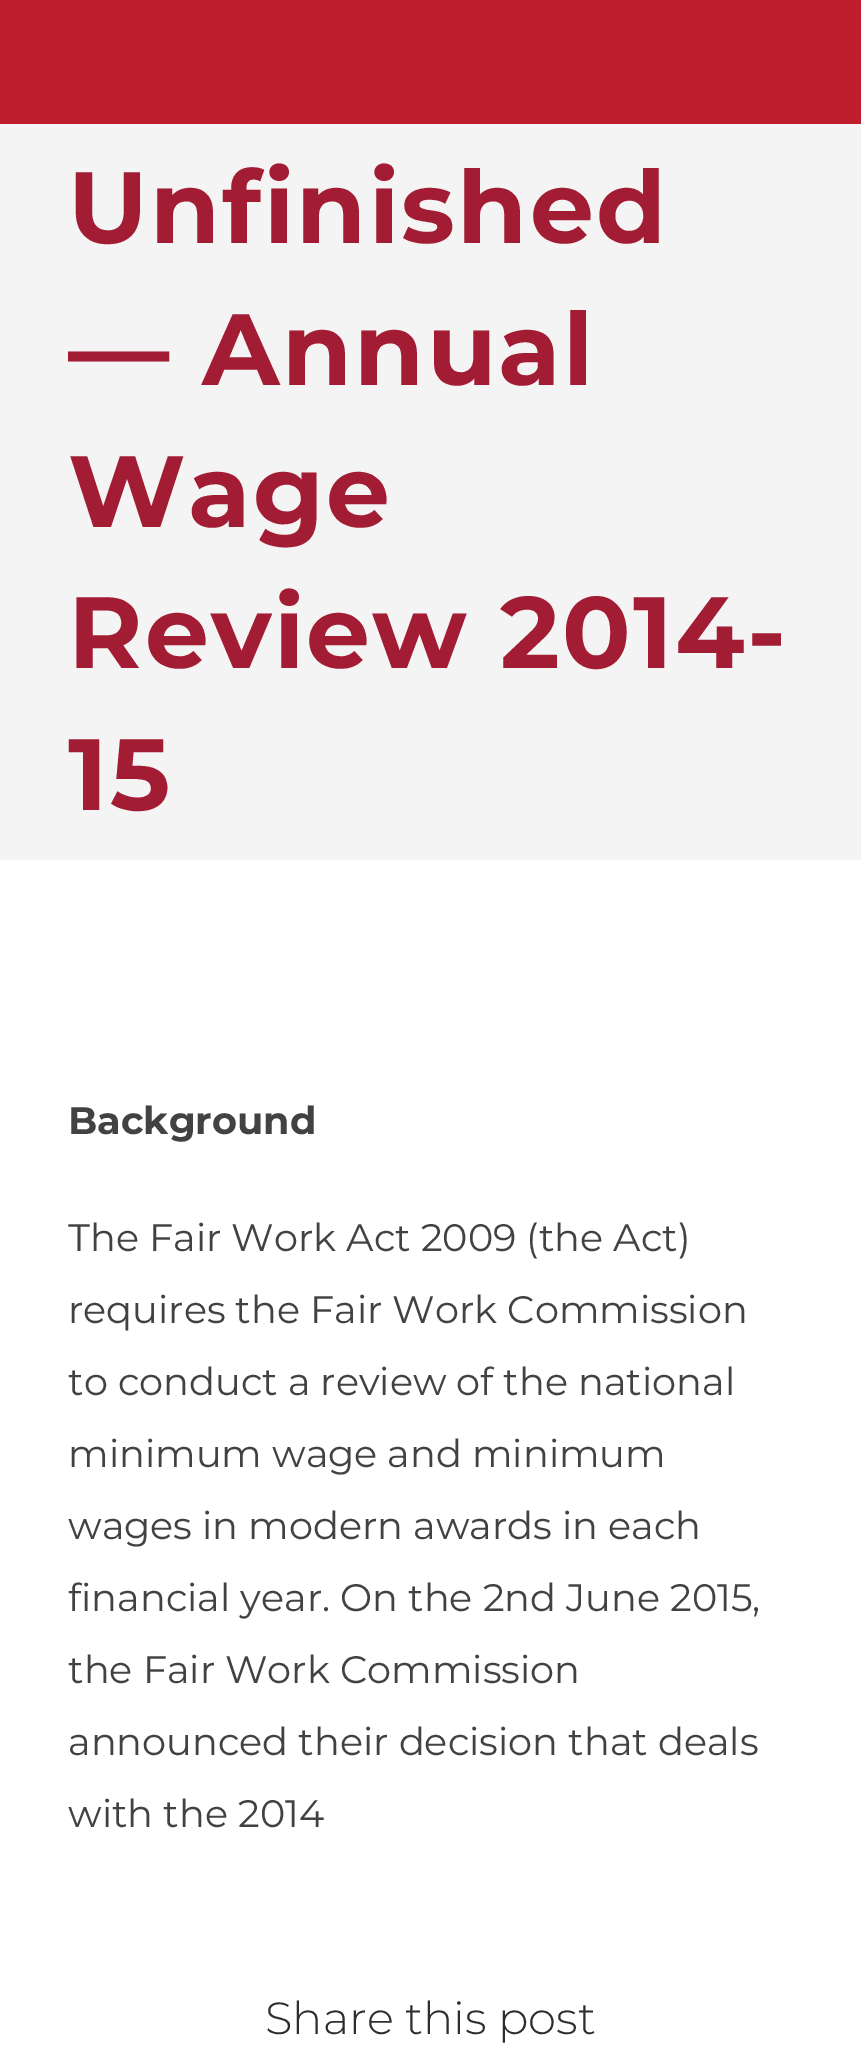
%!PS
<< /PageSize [861 2070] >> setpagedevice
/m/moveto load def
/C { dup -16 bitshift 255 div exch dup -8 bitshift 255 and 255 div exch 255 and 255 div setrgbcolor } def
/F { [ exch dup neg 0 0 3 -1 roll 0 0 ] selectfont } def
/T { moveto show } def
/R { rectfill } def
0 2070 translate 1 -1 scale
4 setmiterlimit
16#FFFFFF C
0 0 861 2070 R
16#BE1E2D C
0 0 861 124 R
16#F4F4F4 C
0 124 861 736 R
/Montserrat-Bold 101.25 F
16#A21C34 C
68 243 m 2.25 0 (Unfinished) ashow
68 385 m 2.25 0 (— Annual) ashow
68 527 m 2.25 0 (Wage) ashow
68 668 m 2.25 0 (Review 2014-) ashow
68 810 m 2.25 0 (15) ashow
/Montserrat-Bold 38.25 F
16#424242 C
(Background) 68 1134 T
/Montserrat-Regular 38.25 F
(The Fair Work Act 2009 \(the Act\)) 68 1251 T
(requires the Fair Work Commission) 68 1323 T
(to conduct a review of the national) 68 1395 T
(minimum wage and minimum) 68 1467 T
(wages in modern awards in each) 68 1539 T
(financial year. On the 2nd June 2015,) 68 1611 T
(the Fair Work Commission) 68 1683 T
(announced their decision that deals) 68 1755 T
(with the 2014) 68 1827 T
/Montserrat-Light 45 F
16#2D2D2D C
(Share this post) 265 2034 T
showpage
